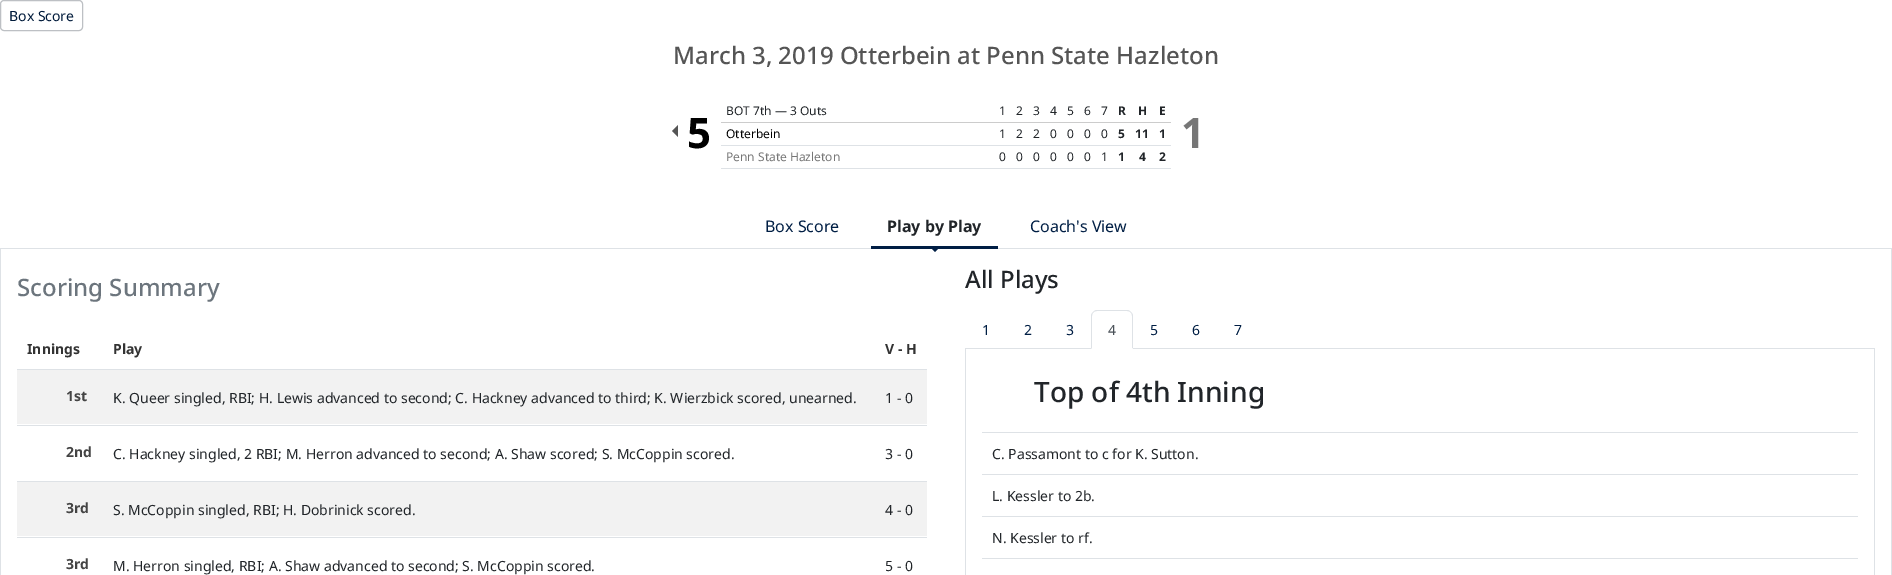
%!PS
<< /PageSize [1892 575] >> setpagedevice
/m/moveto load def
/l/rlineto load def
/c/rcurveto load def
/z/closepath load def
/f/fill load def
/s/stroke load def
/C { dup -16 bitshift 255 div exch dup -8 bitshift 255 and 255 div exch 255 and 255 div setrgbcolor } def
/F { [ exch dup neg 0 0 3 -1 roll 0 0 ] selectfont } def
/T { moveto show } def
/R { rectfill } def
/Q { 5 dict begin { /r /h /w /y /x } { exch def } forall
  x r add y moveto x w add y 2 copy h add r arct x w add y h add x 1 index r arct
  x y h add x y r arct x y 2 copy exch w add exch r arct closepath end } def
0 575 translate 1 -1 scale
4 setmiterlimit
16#FFFFFF C
0 0 1892 575 R
16#BDC0C4 C
.5 .5 82 30 3.5 Q s
/NotoSans-Regular 14 F
16#001A3A C
(Box Score) 9 21 T
/NotoSans-Medium 24 F
16#555555 C
(March 3, 2019 Otterbein at Penn State Hazleton) 673 64 T
678 125 m 0 12 l -6 -6 l z f
/NotoSans-Bold 42 F
16#000000 C
(5) 687 148 T
/NotoSans-Regular 12 F
16#212529 C
(BOT 7th — 3 Outs) 726 115 T
(1) 999 115 T
(2) 1016 115 T
(3) 1033 115 T
(4) 1050 115 T
(5) 1067 115 T
(6) 1084 115 T
(7) 1101 115 T
/NotoSans-Bold 12 F
(R) 1118 115 T
(H) 1138 115 T
(E) 1159 115 T
/NotoSans-Regular 12 F
16#000000 C
(Otterbein) 726 138 T
16#212529 C
(1) 999 138 T
(2) 1016 138 T
(2) 1033 138 T
(0) 1050 138 T
(0) 1067 138 T
(0) 1084 138 T
(0) 1101 138 T
/NotoSans-Bold 12 F
(5) 1118 138 T
(11) 1135 138 T
16#CCCCCC C
721 122 450 1 R
16#DEE2E6 C
721 145 450 1 R
16#212529 C
(1) 1159 138 T
/NotoSans-Regular 12 F
16#767676 C
(Penn State Hazleton) 726 161 T
16#212529 C
(0) 999 161 T
(0) 1016 161 T
(0) 1033 161 T
(0) 1050 161 T
(0) 1067 161 T
(0) 1084 161 T
(1) 1101 161 T
/NotoSans-Bold 12 F
(1) 1118 161 T
(4) 1139 161 T
16#DEE2E6 C
721 168 450 1 R
16#212529 C
(2) 1159 161 T
/NotoSans-Bold 42 F
16#767676 C
(1) 1181 148 T
16#DEE2E6 C
0 248 1892 1 R
/NotoSans-Regular 16 F
16#001E44 C
(Box Score) 765 232 T
871 246 127 3 R
/NotoSans-Bold 16 F
16#212529 C
(Play by Play) 887 232 T
16#001E44 C
929 246 m 12 0 l -6 6 l z f
/NotoSans-Regular 16 F
(Coach's View) 1030 232 T
16#DEE2E6 C
1891 249 1 326 R
0 249 1 326 R
/NotoSans-Medium 24 F
16#6C757D C
(Scoring Summary) 17 296 T
/NotoSans-Bold 14 F
16#333333 C
(Innings) 27 354 T
(Play) 113 354 T
16#DEE2E6 C
17 369 910 1 R
16#333333 C
(V - H) 885 354 T
16#F2F2F2 C
17 370 910 54 R
16#444444 C
(1st) 66 401 T
/NotoSans-Regular 14 F
16#212529 C
(K. Queer singled, RBI; H. Lewis advanced to second; C. Hackney advanced to third; K. Wierzbick scored, unearned.) 113 403 T
16#DEE2E6 C
17 425 910 1 R
16#212529 C
(1 - 0) 885 403 T
/NotoSans-Bold 14 F
16#444444 C
(2nd) 66 457 T
/NotoSans-Regular 14 F
16#212529 C
(C. Hackney singled, 2 RBI; M. Herron advanced to second; A. Shaw scored; S. McCoppin scored.) 113 459 T
16#DEE2E6 C
17 481 910 1 R
16#212529 C
(3 - 0) 885 459 T
16#F2F2F2 C
17 482 910 54 R
/NotoSans-Bold 14 F
16#444444 C
(3rd) 66 513 T
/NotoSans-Regular 14 F
16#212529 C
(S. McCoppin singled, RBI; H. Dobrinick scored.) 113 515 T
16#DEE2E6 C
17 537 910 1 R
16#212529 C
(4 - 0) 885 515 T
/NotoSans-Bold 14 F
16#444444 C
(3rd) 66 569 T
/NotoSans-Regular 14 F
16#212529 C
(M. Herron singled, RBI; A. Shaw advanced to second; S. McCoppin scored.) 113 571 T
(5 - 0) 885 571 T
/NotoSans-Medium 24 F
(All Plays) 965 288 T
16#DEE2E6 C
965 348 910 1 R
/NotoSans-Regular 14 F
16#001E44 C
(1) 982 335 T
(2) 1024 335 T
(3) 1066 335 T
16#FFFFFF C
1097 310 m 30 0 l 3.5 0 6 2.5 6 6 c 0 33 l -42 0 l 0 -33 l 0 -3.5 2.5 -6 6 -6 c z f
16#DEE2E6 C
1097 310 m -1.5 0 -3 1 -4 2 c .5 .5 l .5 -1 2 -1.5 3.5 -1.5 c 30 0 l 1.5 0 3 .5 3.5 1.5 c .5 -.5 l -1 -1 -2.5 -2 -4 -2 c z f
1133 349 m 0 -33 l 0 -1.5 -1 -3 -2 -4 c -.5 .5 l 1 .5 1.5 2 1.5 3.5 c 0 32 l z f
16#FFFFFF C
1133 349 m -1 -1 l -40 0 l -1 1 l z f
16#DEE2E6 C
1091 349 m 1 -1 l 0 -32 l 0 -1.5 .5 -3 1.5 -3.5 c -.5 -.5 l -1 1 -2 2.5 -2 4 c z f
16#495057 C
(4) 1108 335 T
16#001E44 C
(5) 1150 335 T
(6) 1192 335 T
(7) 1234 335 T
16#DEE2E6 C
1874 349 1 226 R
965 349 1 226 R
982 432 876 1 R
/NotoSans-Medium 28 F
16#212529 C
(Top of 4th Inning) 1034 402 T
16#DEE2E6 C
982 474 876 1 R
/NotoSans-Regular 14 F
16#212529 C
(C. Passamont to c for K. Sutton.) 992 459 T
16#DEE2E6 C
982 516 876 1 R
16#212529 C
(L. Kessler to 2b.) 992 501 T
16#DEE2E6 C
982 558 876 1 R
16#212529 C
(N. Kessler to rf.) 992 543 T
showpage
